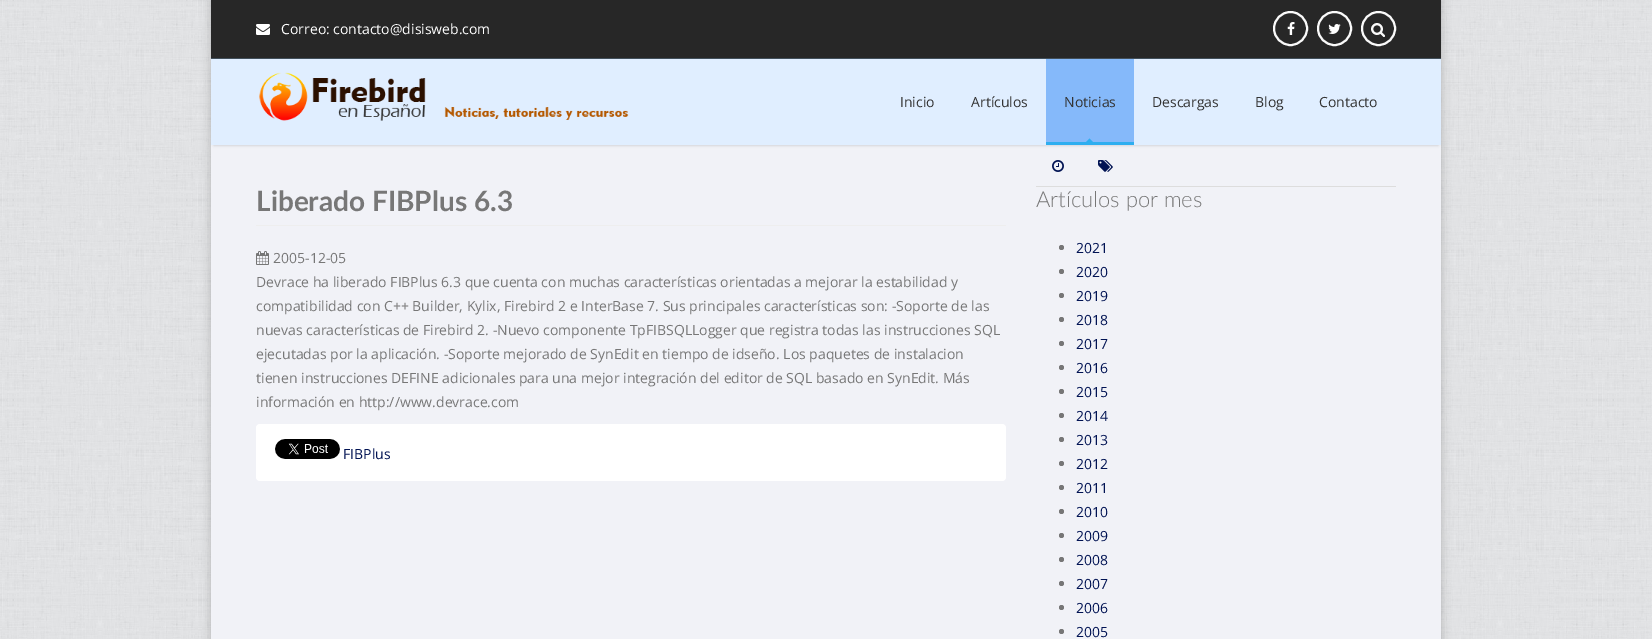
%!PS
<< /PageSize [1652 639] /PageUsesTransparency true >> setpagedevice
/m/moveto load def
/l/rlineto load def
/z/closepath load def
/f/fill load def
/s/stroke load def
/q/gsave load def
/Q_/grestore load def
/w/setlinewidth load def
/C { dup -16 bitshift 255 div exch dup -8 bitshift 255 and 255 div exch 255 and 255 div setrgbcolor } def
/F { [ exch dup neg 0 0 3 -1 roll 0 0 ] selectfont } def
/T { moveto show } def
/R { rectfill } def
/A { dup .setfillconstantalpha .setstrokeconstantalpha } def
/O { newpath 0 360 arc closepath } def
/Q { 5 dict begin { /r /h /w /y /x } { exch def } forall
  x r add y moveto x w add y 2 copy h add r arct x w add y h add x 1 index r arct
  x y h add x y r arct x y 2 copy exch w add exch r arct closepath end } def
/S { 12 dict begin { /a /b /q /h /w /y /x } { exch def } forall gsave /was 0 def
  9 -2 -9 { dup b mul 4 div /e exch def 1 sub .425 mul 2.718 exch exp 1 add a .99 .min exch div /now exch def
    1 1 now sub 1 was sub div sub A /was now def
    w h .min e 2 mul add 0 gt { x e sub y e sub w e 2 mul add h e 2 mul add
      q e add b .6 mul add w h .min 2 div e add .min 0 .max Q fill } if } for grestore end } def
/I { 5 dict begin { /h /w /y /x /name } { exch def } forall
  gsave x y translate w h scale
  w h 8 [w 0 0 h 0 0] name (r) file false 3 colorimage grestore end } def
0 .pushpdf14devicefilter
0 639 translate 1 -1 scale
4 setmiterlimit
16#FFFFFF C
0 0 1652 639 R
(1.rgb) 0 0 1652 639 I
16#000000 C
211 0 1230 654 0 5 .2 S
16#272727 C
211 0 1230 58 R
16#414F5A C
211 58 1230 1 R
(2.rgb) 256 24 14 11 I
/OpenSans-Regular 14 F
16#FFFFFF C
(Correo: contacto@disisweb.com) 281 34 T
16#FAFAFA C
2 w
1290.5 28.5 16.5 O s
(3.rgb) 1287 22 8 13 I
1334.5 28.5 16.5 O s
(4.rgb) 1328 24 13 10 I
(5.rgb) 1371 23 14 14 I
1378.5 28.5 16.5 O s
16#F1F2F7 C
211 145 1230 494 R
16#000000 C
214 65 1224 80 0 1.5 .2 S
16#E0EEFF C
211 59 1230 86 R
(6.rgb) 259 72 370 49 I
16#333333 C
(Inicio) 900 107 T
(Artículos) 971 107 T
16#85B9FA C
1046 59 88 83 R
16#2EAEF0 C
1046 142 88 3 R
16#333333 C
(Noticias) 1064 107 T
q
1046 59 88 83 rectclip
16#2EAEF0 C
1089.5 138.5 m 3.5 3.5 l -3.5 3.5 l -3.5 -3.5 l z f
Q_
(Descargas) 1152 107 T
(Blog) 1255 107 T
(Contacto) 1319 107 T
16#EEEEEE C
256 225 750 1 R
/Lato-Bold 28 F
16#777777 C
(Liberado FIBPlus 6.3) 256 211 T
(7.rgb) 256 251 13 14 I
/OpenSans-Regular 14 F
(2005-12-05) 273 263 T
(Devrace ha liberado FIBPlus 6.3 que cuenta con muchas características orientadas a mejorar la estabilidad y) 256 287 T
(compatibilidad con C++ Builder, Kylix, Firebird 2 e InterBase 7. Sus principales características son: -Soporte de las) 256 311 T
(nuevas características de Firebird 2. -Nuevo componente TpFIBSQLLogger que registra todas las instrucciones SQL) 256 335 T
(ejecutadas por la aplicación. -Soporte mejorado de SynEdit en tiempo de idseño. Los paquetes de instalacion) 256 359 T
(tienen instrucciones DEFINE adicionales para una mejor integración del editor de SQL basado en SynEdit. Más) 256 383 T
(información en http://www.devrace.com) 256 407 T
16#FFFFFF C
256 424 750 57 4 Q f
(8.rgb) 275 439 65 20 I
16#011353 C
(FIBPlus) 343 459 T
16#DDDDDD C
1036 186 360 1 R
(9.rgb) 1052 160 12 12 I
(10.rgb) 1098 160 15 12 I
/Lato-Light 22 F
16#777777 C
(Artículos por mes) 1036 207 T
16#767676 C
1061.5 247.5 2.5 O f
/OpenSans-Regular 14 F
16#011353 C
(2021) 1076 253 T
16#767676 C
1061.5 271.5 2.5 O f
16#011353 C
(2020) 1076 277 T
16#767676 C
1061.5 295.5 2.5 O f
16#011353 C
(2019) 1076 301 T
16#767676 C
1061.5 319.5 2.5 O f
16#011353 C
(2018) 1076 325 T
16#767676 C
1061.5 343.5 2.5 O f
16#011353 C
(2017) 1076 349 T
16#767676 C
1061.5 367.5 2.5 O f
16#011353 C
(2016) 1076 373 T
16#767676 C
1061.5 391.5 2.5 O f
16#011353 C
(2015) 1076 397 T
16#767676 C
1061.5 415.5 2.5 O f
16#011353 C
(2014) 1076 421 T
16#767676 C
1061.5 439.5 2.5 O f
16#011353 C
(2013) 1076 445 T
16#767676 C
1061.5 463.5 2.5 O f
16#011353 C
(2012) 1076 469 T
16#767676 C
1061.5 487.5 2.5 O f
16#011353 C
(2011) 1076 493 T
16#767676 C
1061.5 511.5 2.5 O f
16#011353 C
(2010) 1076 517 T
16#767676 C
1061.5 535.5 2.5 O f
16#011353 C
(2009) 1076 541 T
16#767676 C
1061.5 559.5 2.5 O f
16#011353 C
(2008) 1076 565 T
16#767676 C
1061.5 583.5 2.5 O f
16#011353 C
(2007) 1076 589 T
16#767676 C
1061.5 607.5 2.5 O f
16#011353 C
(2006) 1076 613 T
16#767676 C
1061.5 631.5 2.5 O f
16#011353 C
(2005) 1076 637 T
.poppdf14devicefilter showpage
